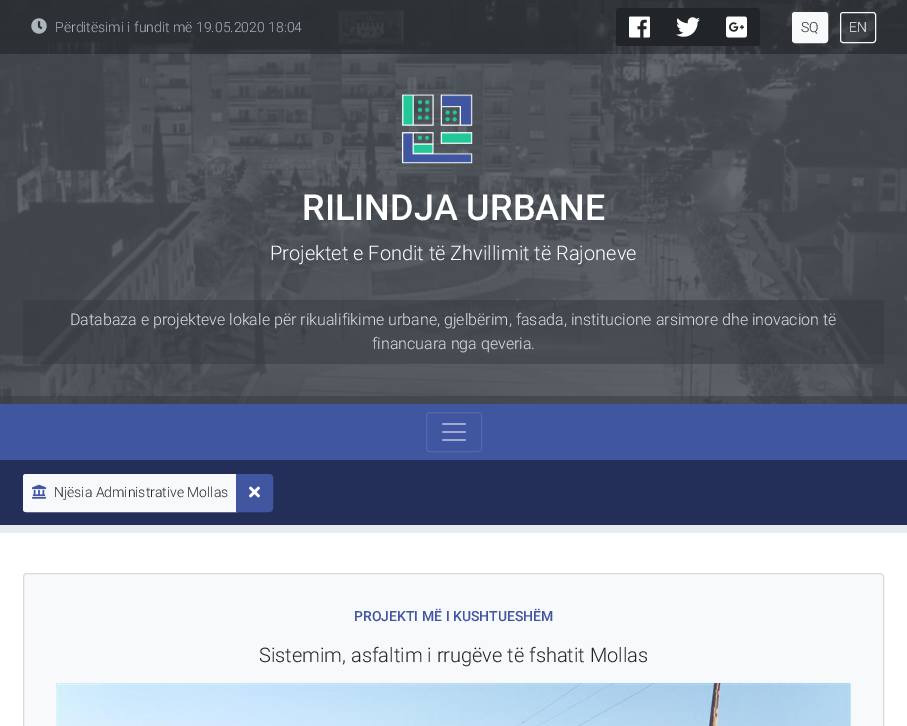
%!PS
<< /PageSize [907 726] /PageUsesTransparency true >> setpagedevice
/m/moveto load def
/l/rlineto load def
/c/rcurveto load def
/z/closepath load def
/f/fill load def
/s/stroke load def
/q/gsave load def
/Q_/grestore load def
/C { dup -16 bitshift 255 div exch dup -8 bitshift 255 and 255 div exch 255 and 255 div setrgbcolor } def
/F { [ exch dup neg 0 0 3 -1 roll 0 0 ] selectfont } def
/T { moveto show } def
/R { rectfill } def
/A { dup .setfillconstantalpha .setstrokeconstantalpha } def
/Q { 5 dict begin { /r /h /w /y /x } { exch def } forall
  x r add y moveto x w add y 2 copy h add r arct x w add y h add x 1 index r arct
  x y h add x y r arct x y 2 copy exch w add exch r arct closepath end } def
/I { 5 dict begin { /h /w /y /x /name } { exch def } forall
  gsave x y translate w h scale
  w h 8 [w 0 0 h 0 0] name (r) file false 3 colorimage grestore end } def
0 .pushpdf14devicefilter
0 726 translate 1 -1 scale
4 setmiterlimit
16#FFFFFF C
0 0 907 726 R
(1.rgb) 0 0 907 404 I
0.5 A
16#343A40 C
0 396 907 8 R
0.3 A
16#000000 C
0 0 907 54 R
1 A
(2.rgb) 31 18 16 16 I
/Roboto-Light 14 F
16#ADB5BD C
(Përditësimi i fundit më 19.05.2020 18:04) 55 32 T
16#212529 C
616 8 144 38 3 Q f
(3.rgb) 629 16 21 22 I
(4.rgb) 676 17 24 20 I
(5.rgb) 726 16 21 22 I
16#F8F9FA C
792.5 12.5 35 30 2.5 Q q f Q_
s
16#212529 C
(SQ) 801 32 T
16#F8F9FA C
840.5 12.5 35 30 2.5 Q s
(EN) 849 32 T
(6.rgb) 401 94 72 70 I
/Roboto-Medium 36 F
16#FFFFFF C
(RILINDJA URBANE) 302 220 T
/Roboto-Light 20 F
(Projektet e Fondit të Zhvillimit të Rajoneve) 270 260 T
0.5 A
16#343A40 C
23 300 861 64 R
/Roboto-Light 16 F
1 A
16#DEE2E6 C
(Databaza e projekteve lokale për rikualifikime urbane, gjelbërim, fasada, institucione arsimore dhe inovacion të) 70 325 T
(financuara nga qeveria.) 372 349 T
16#4056A1 C
0 404 907 56 R
16#5367AA C
426.5 412.5 55 39 3.5 Q s
(7.rgb) 442 423 24 18 I
16#232F58 C
0 460 907 65 R
16#F8F9FA C
26 474.5 m 210.5 0 l 0 37 l -210.5 0 l -1.5 0 -2.5 -1 -2.5 -2.5 c 0 -32 l 0 -1.5 1 -2.5 2.5 -2.5 c z q f Q_
s
(8.rgb) 32 484 14 15 I
/Roboto-Light 14 F
16#212529 C
(Njësia Administrative Mollas) 54 497 T
16#4056A1 C
236.5 474.5 m 32.5 0 l 2 0 3.5 1.5 3.5 3.5 c 0 30 l 0 2 -1.5 3.5 -3.5 3.5 c -32.5 0 l z q f Q_
s
(9.rgb) 249 486 11 12 I
16#E9ECEF C
0 525 907 8 R
16#F8F9FA C
23.5 573.5 860 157 3.5 Q q f Q_
16#D9DADB C
s
/Roboto-Medium 14 F
16#4056A1 C
(PROJEKTI MË I KUSHTUESHËM) 354 621 T
/Roboto-Light 20 F
16#212529 C
(Sistemim, asfaltim i rrugëve të fshatit Mollas) 259 662 T
16#DEE2E6 C
56 683 795 3 R
(10.rgb) 56 683 795 43 I
.poppdf14devicefilter showpage
